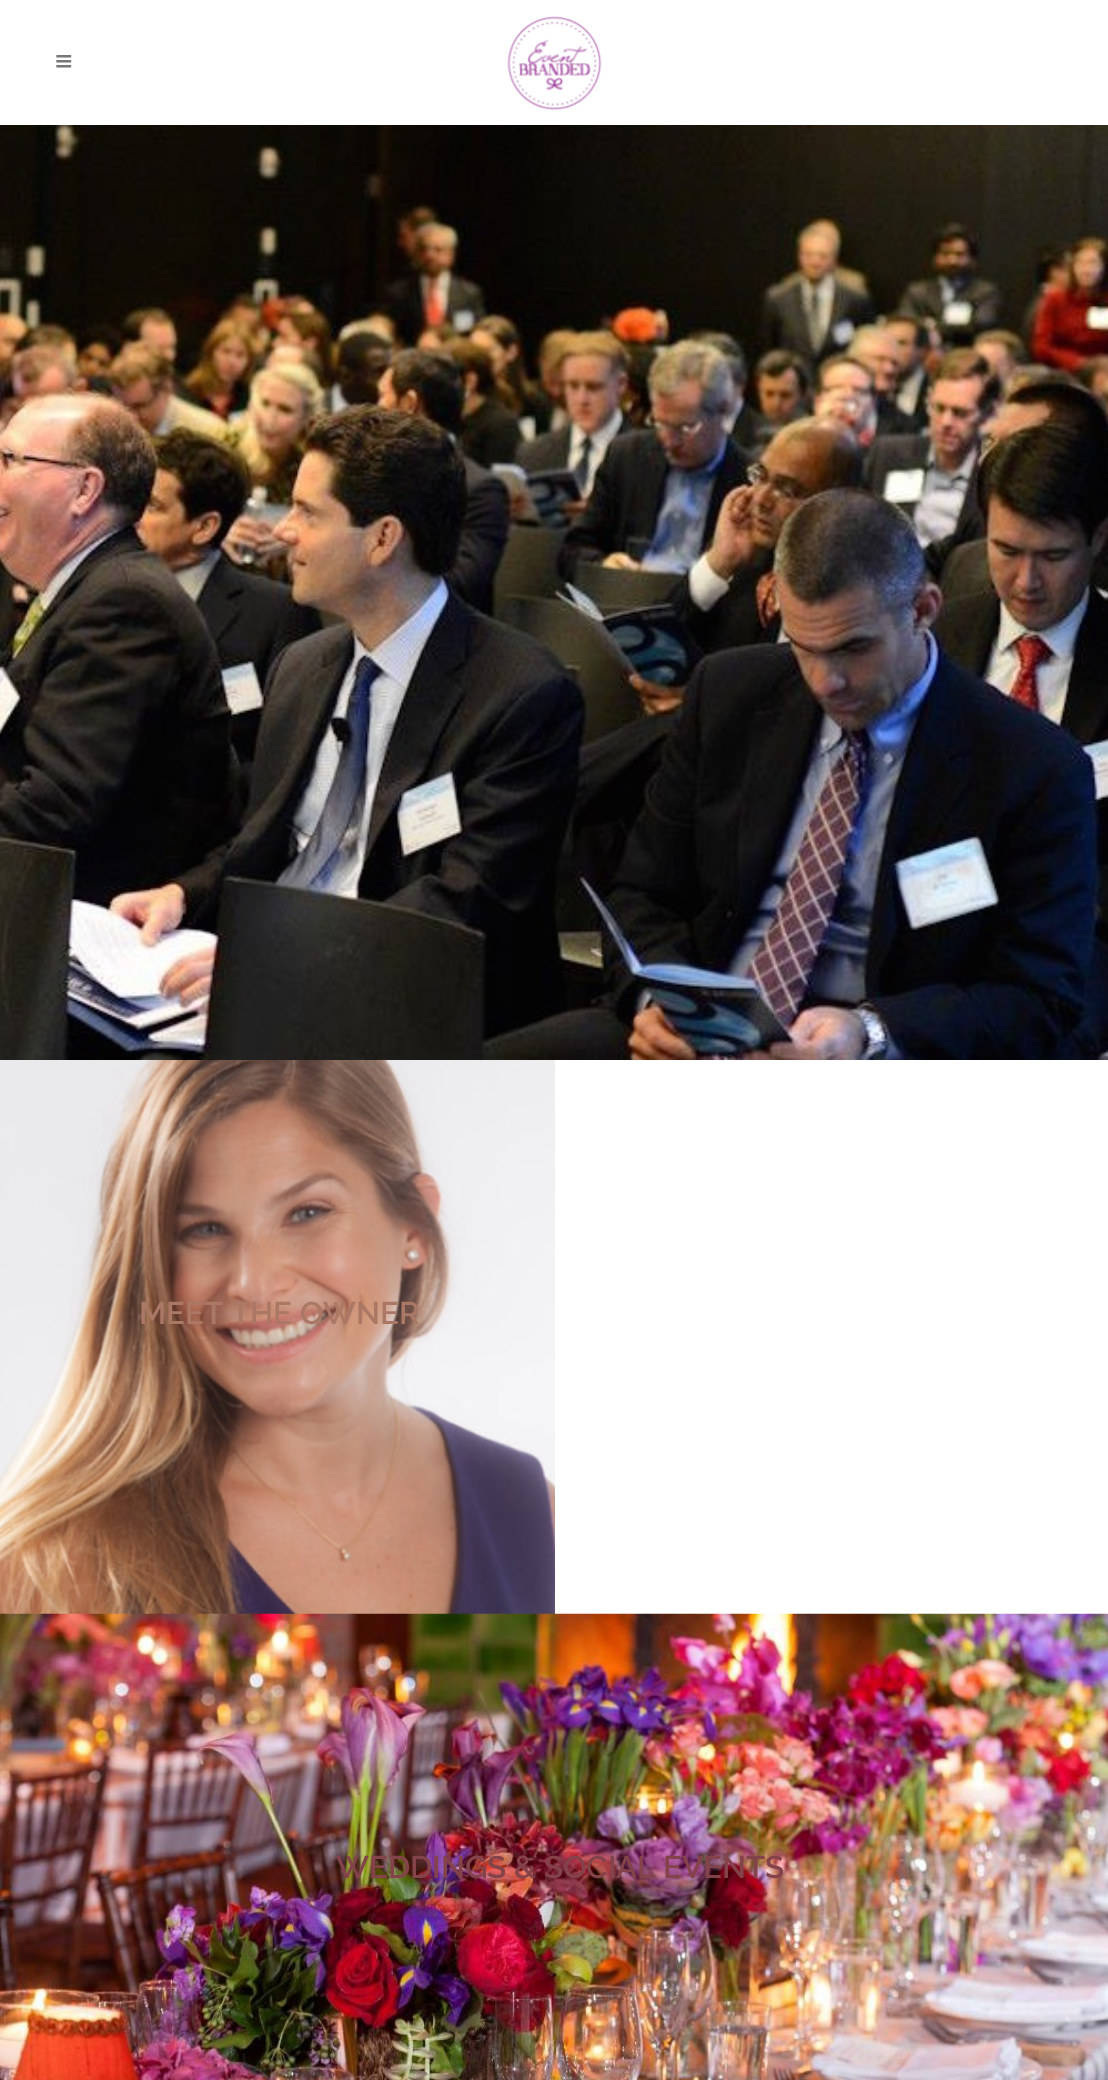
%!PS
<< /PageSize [1108 2080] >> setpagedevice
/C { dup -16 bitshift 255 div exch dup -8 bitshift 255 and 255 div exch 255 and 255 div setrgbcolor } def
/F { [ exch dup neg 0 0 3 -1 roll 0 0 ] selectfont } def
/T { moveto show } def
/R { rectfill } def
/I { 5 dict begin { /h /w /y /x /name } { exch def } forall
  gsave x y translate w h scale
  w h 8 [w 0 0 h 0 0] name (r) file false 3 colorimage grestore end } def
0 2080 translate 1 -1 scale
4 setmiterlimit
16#FFFFFF C
0 0 1108 2080 R
(1.rgb) 56 55 16 13 I
(2.rgb) 507 16 95 94 I
(3.rgb) 0 125 1108 935 I
(4.rgb) 0 1060 555 554 I
/Raleway-SemiBold 31.25 F
16#AB7866 C
(MEET THE OWNER) 139 1324 T
(5.rgb) 0 1613 1108 467 I
16#84424B C
(WEDDINGS & SOCIAL EVENTS) 336 1878 T
showpage
